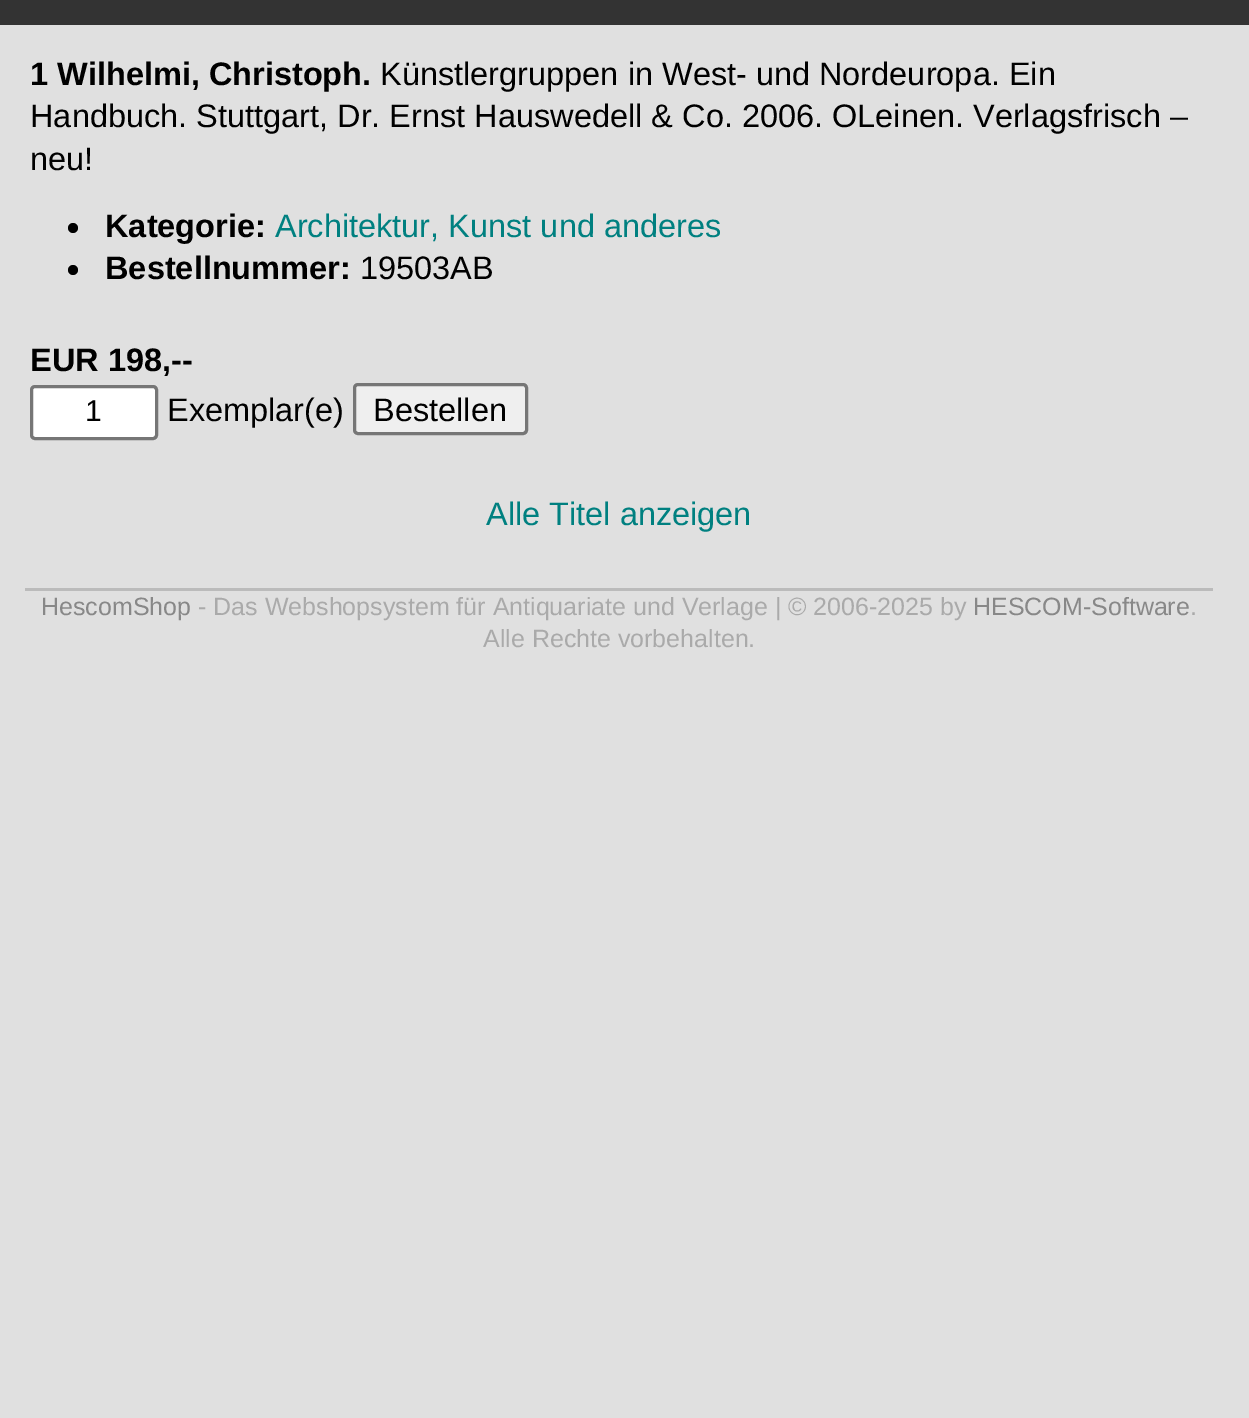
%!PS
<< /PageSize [1249 1418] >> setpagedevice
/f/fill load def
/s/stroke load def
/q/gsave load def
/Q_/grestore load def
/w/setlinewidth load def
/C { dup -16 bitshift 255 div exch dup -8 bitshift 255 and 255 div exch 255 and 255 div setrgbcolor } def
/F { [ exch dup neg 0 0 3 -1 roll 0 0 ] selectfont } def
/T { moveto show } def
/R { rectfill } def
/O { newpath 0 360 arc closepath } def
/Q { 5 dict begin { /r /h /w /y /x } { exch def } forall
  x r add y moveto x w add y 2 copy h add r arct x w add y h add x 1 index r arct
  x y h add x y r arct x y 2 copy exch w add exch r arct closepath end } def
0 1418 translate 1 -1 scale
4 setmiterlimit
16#E0E0E0 C
0 0 1249 1418 R
16#333333 C
0 0 1249 25 R
/LiberationSans-Bold 32.5 F
16#000000 C
(1 Wilhelmi, Christoph.) 30 85 T
/LiberationSans-Regular 32.5 F
(Künstlergruppen in West- und Nordeuropa. Ein) 380 85 T
(Handbuch. Stuttgart, Dr. Ernst Hauswedell & Co. 2006. OLeinen. Verlagsfrisch –) 30 127 T
(neu!) 30 170 T
73 228 5 O f
/LiberationSans-Bold 32.5 F
(Kategorie:) 105 237 T
/LiberationSans-Regular 32.5 F
16#008080 C
(Architektur, Kunst und anderes) 275 237 T
16#000000 C
73 270 5 O f
/LiberationSans-Bold 32.5 F
(Bestellnummer:) 105 279 T
/LiberationSans-Regular 32.5 F
(19503AB) 360 279 T
/LiberationSans-Bold 32.5 F
(EUR 198,--) 30 371 T
16#FFFFFF C
31.5 386.5 125 52 3.5 Q q f Q_
16#767676 C
3 w
s
/LiberationSans-Regular 30 F
16#000000 C
(1) 85 421 T
/LiberationSans-Regular 32.5 F
(Exemplar\(e\)) 167 421 T
16#EFEFEF C
354.5 384.5 172 49 3.5 Q q f Q_
16#767676 C
s
16#000000 C
(Bestellen) 373 421 T
16#008080 C
(Alle Titel anzeigen) 486 525 T
16#BBBBBB C
25 588 1188 3 R
/LiberationSans-Regular 25 F
16#888888 C
(HescomShop) 41 615 T
16#AAAAAA C
(- Das Webshopsystem für Antiquariate und Verlage | © 2006-2025 by) 198 615 T
16#888888 C
(HESCOM-Software) 973 615 T
16#AAAAAA C
(.) 1190 615 T
(Alle Rechte vorbehalten.) 483 647 T
showpage
